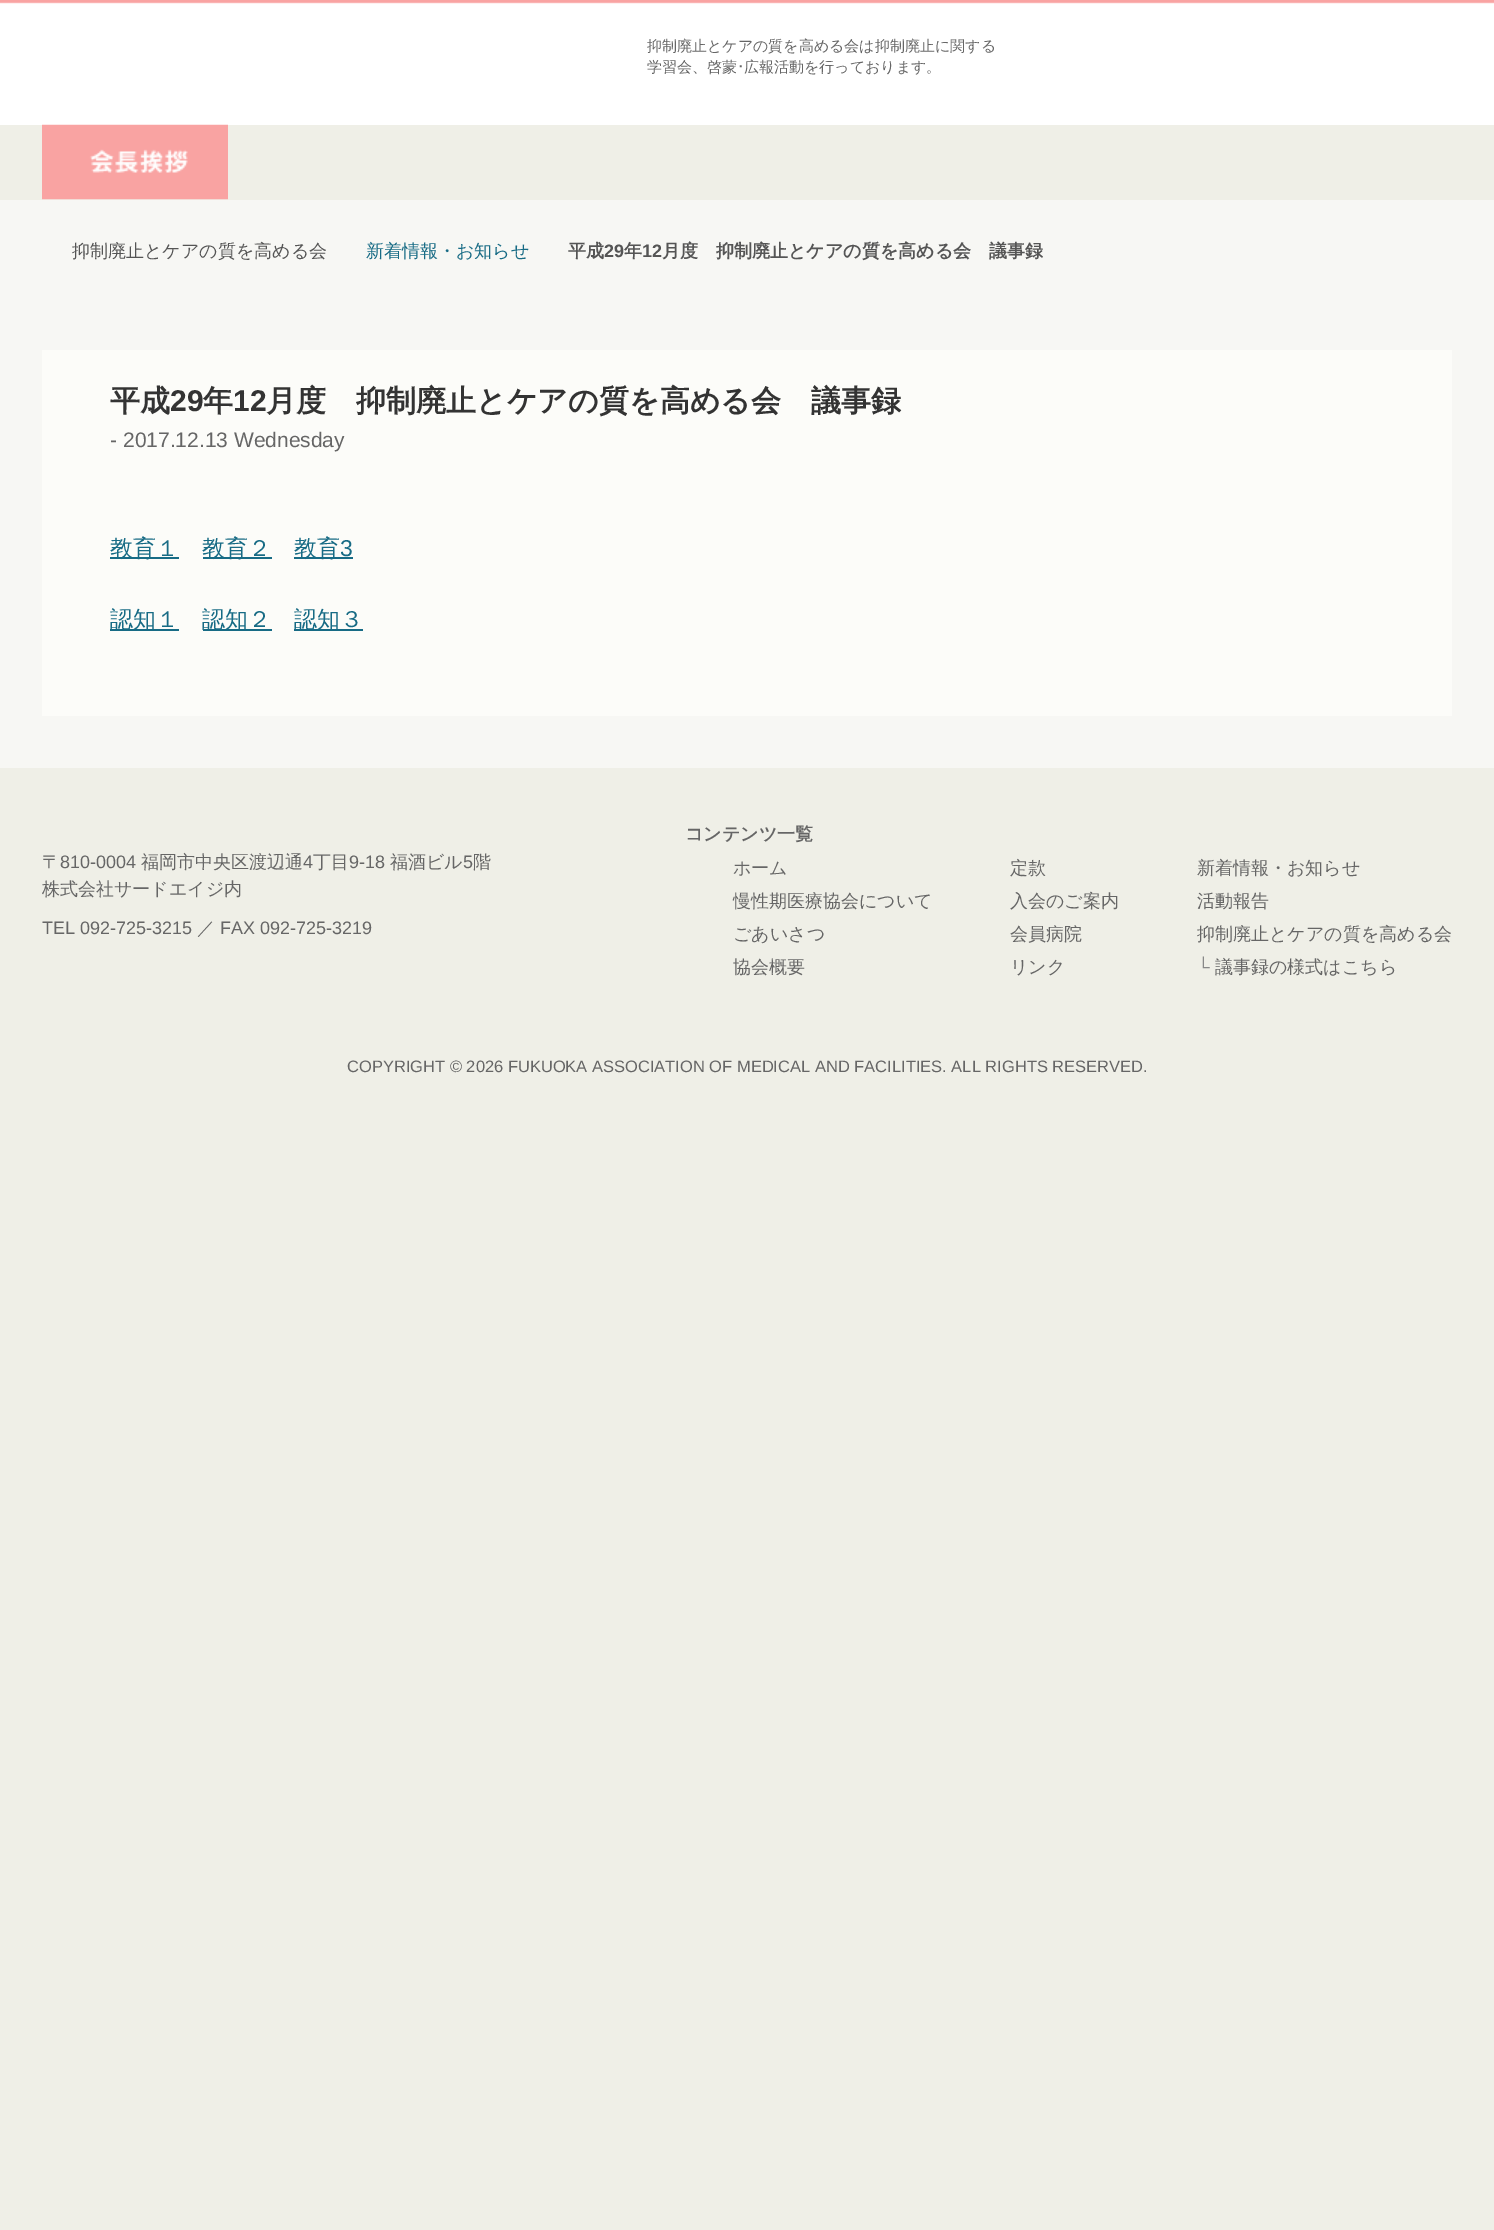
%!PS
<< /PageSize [1494 2230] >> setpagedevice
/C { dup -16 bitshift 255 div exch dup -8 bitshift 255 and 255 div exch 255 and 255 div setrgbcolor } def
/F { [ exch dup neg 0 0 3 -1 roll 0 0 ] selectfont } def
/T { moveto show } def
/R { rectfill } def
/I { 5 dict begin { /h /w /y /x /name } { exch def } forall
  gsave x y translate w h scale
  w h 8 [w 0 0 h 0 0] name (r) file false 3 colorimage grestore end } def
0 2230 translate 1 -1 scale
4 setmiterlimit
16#EFEFE7 C
0 0 1494 2230 R
16#FFFFFF C
0 4 1494 121 R
(1.rgb) 0 0 1494 4 I
/WenQuanYiZenHei-Medium 15 F
16#666666 C
(抑制廃止とケアの質を高める会は抑制廃止に関する) 647 51 T
(学習会、啓蒙) 647 72 T
/IPAPGothic-Regular 15 F
(･) 737 72 T
/WenQuanYiZenHei-Medium 15 F
(広報活動を行っております。) 744 72 T
(2.rgb) 42 124 186 76 I
16#F7F7F4 C
0 200 1494 568 R
/WenQuanYiZenHei-Medium 18 F
16#555555 C
(抑制廃止とケアの質を高める会) 72 257 T
16#176B85 C
(新着情報・お知らせ) 366 257 T
/WenQuanYiZenHei-Bold 18 F
16#555555 C
(平成) 568 257 T
/LiberationSans-Bold 18 F
(29) 604 257 T
/WenQuanYiZenHei-Bold 18 F
(年) 624 257 T
/LiberationSans-Bold 18 F
(12) 642 257 T
/WenQuanYiZenHei-Bold 18 F
(月度　抑制廃止とケアの質を高める会　議事録) 662 257 T
16#FCFCF9 C
42 350 1410 366 R
/WenQuanYiZenHei-Bold 30 F
16#333333 C
(平成) 110 411 T
/LiberationSans-Bold 30 F
(29) 170 411 T
/WenQuanYiZenHei-Bold 30 F
(年) 203 411 T
/LiberationSans-Bold 30 F
(12) 233 411 T
/WenQuanYiZenHei-Bold 30 F
(月度　抑制廃止とケアの質を高める会　議事録) 266 411 T
/LiberationSans-Regular 21 F
16#666666 C
(- 2017.12.13 Wednesday) 110 447 T
16#176B85 C
110 557 69 2 R
/WenQuanYiZenHei-Medium 23 F
(教育１) 110 556 T
203 557 69 2 R
(教育２) 202 556 T
294 557 59 2 R
(教育) 294 556 T
/LiberationSans-Regular 23 F
(3) 340 556 T
110 629 69 2 R
/WenQuanYiZenHei-Medium 23 F
(認知１) 110 627 T
203 629 69 2 R
(認知２) 202 627 T
294 629 69 2 R
(認知３) 294 627 T
/WenQuanYiZenHei-Medium 18 F
16#666666 C
(〒) 42 868 T
/LiberationSans-Regular 18 F
(810-0004) 60 868 T
/WenQuanYiZenHei-Medium 18 F
(福岡市中央区渡辺通) 141 868 T
/LiberationSans-Regular 18 F
(4) 303 868 T
/WenQuanYiZenHei-Medium 18 F
(丁目) 313 868 T
/LiberationSans-Regular 18 F
(9-18) 349 868 T
/WenQuanYiZenHei-Medium 18 F
(福酒ビル) 390 868 T
/LiberationSans-Regular 18 F
(5) 463 868 T
/WenQuanYiZenHei-Medium 18 F
(階) 473 868 T
(株式会社サードエイジ内) 42 895 T
/LiberationSans-Regular 18 F
(TEL 092-725-3215) 42 934 T
/WenQuanYiZenHei-Medium 18 F
(／) 197 934 T
/LiberationSans-Regular 18 F
(FAX 092-725-3219) 220 934 T
/WenQuanYiZenHei-Bold 18 F
(コンテンツ一覧) 685 840 T
/WenQuanYiZenHei-Medium 18 F
(ホーム) 733 874 T
(慢性期医療協会について) 733 907 T
(ごあいさつ) 733 940 T
(協会概要) 733 973 T
(定款) 1010 874 T
(入会のご案内) 1010 907 T
(会員病院) 1010 940 T
(リンク) 1010 973 T
(新着情報・お知らせ) 1197 874 T
(活動報告) 1197 907 T
(抑制廃止とケアの質を高める会) 1197 940 T
/LiberationSans-Regular 18 F
16#888888 C
(└) 1197 973 T
/WenQuanYiZenHei-Medium 18 F
16#666666 C
(議事録の様式はこちら) 1215 973 T
/LiberationSans-Regular 16.5 F
(COPYRIGHT © 2026 FUKUOKA ASSOCIATION OF MEDICAL AND FACILITIES. ALL RIGHTS RESERVED.) 347 1072 T
showpage
